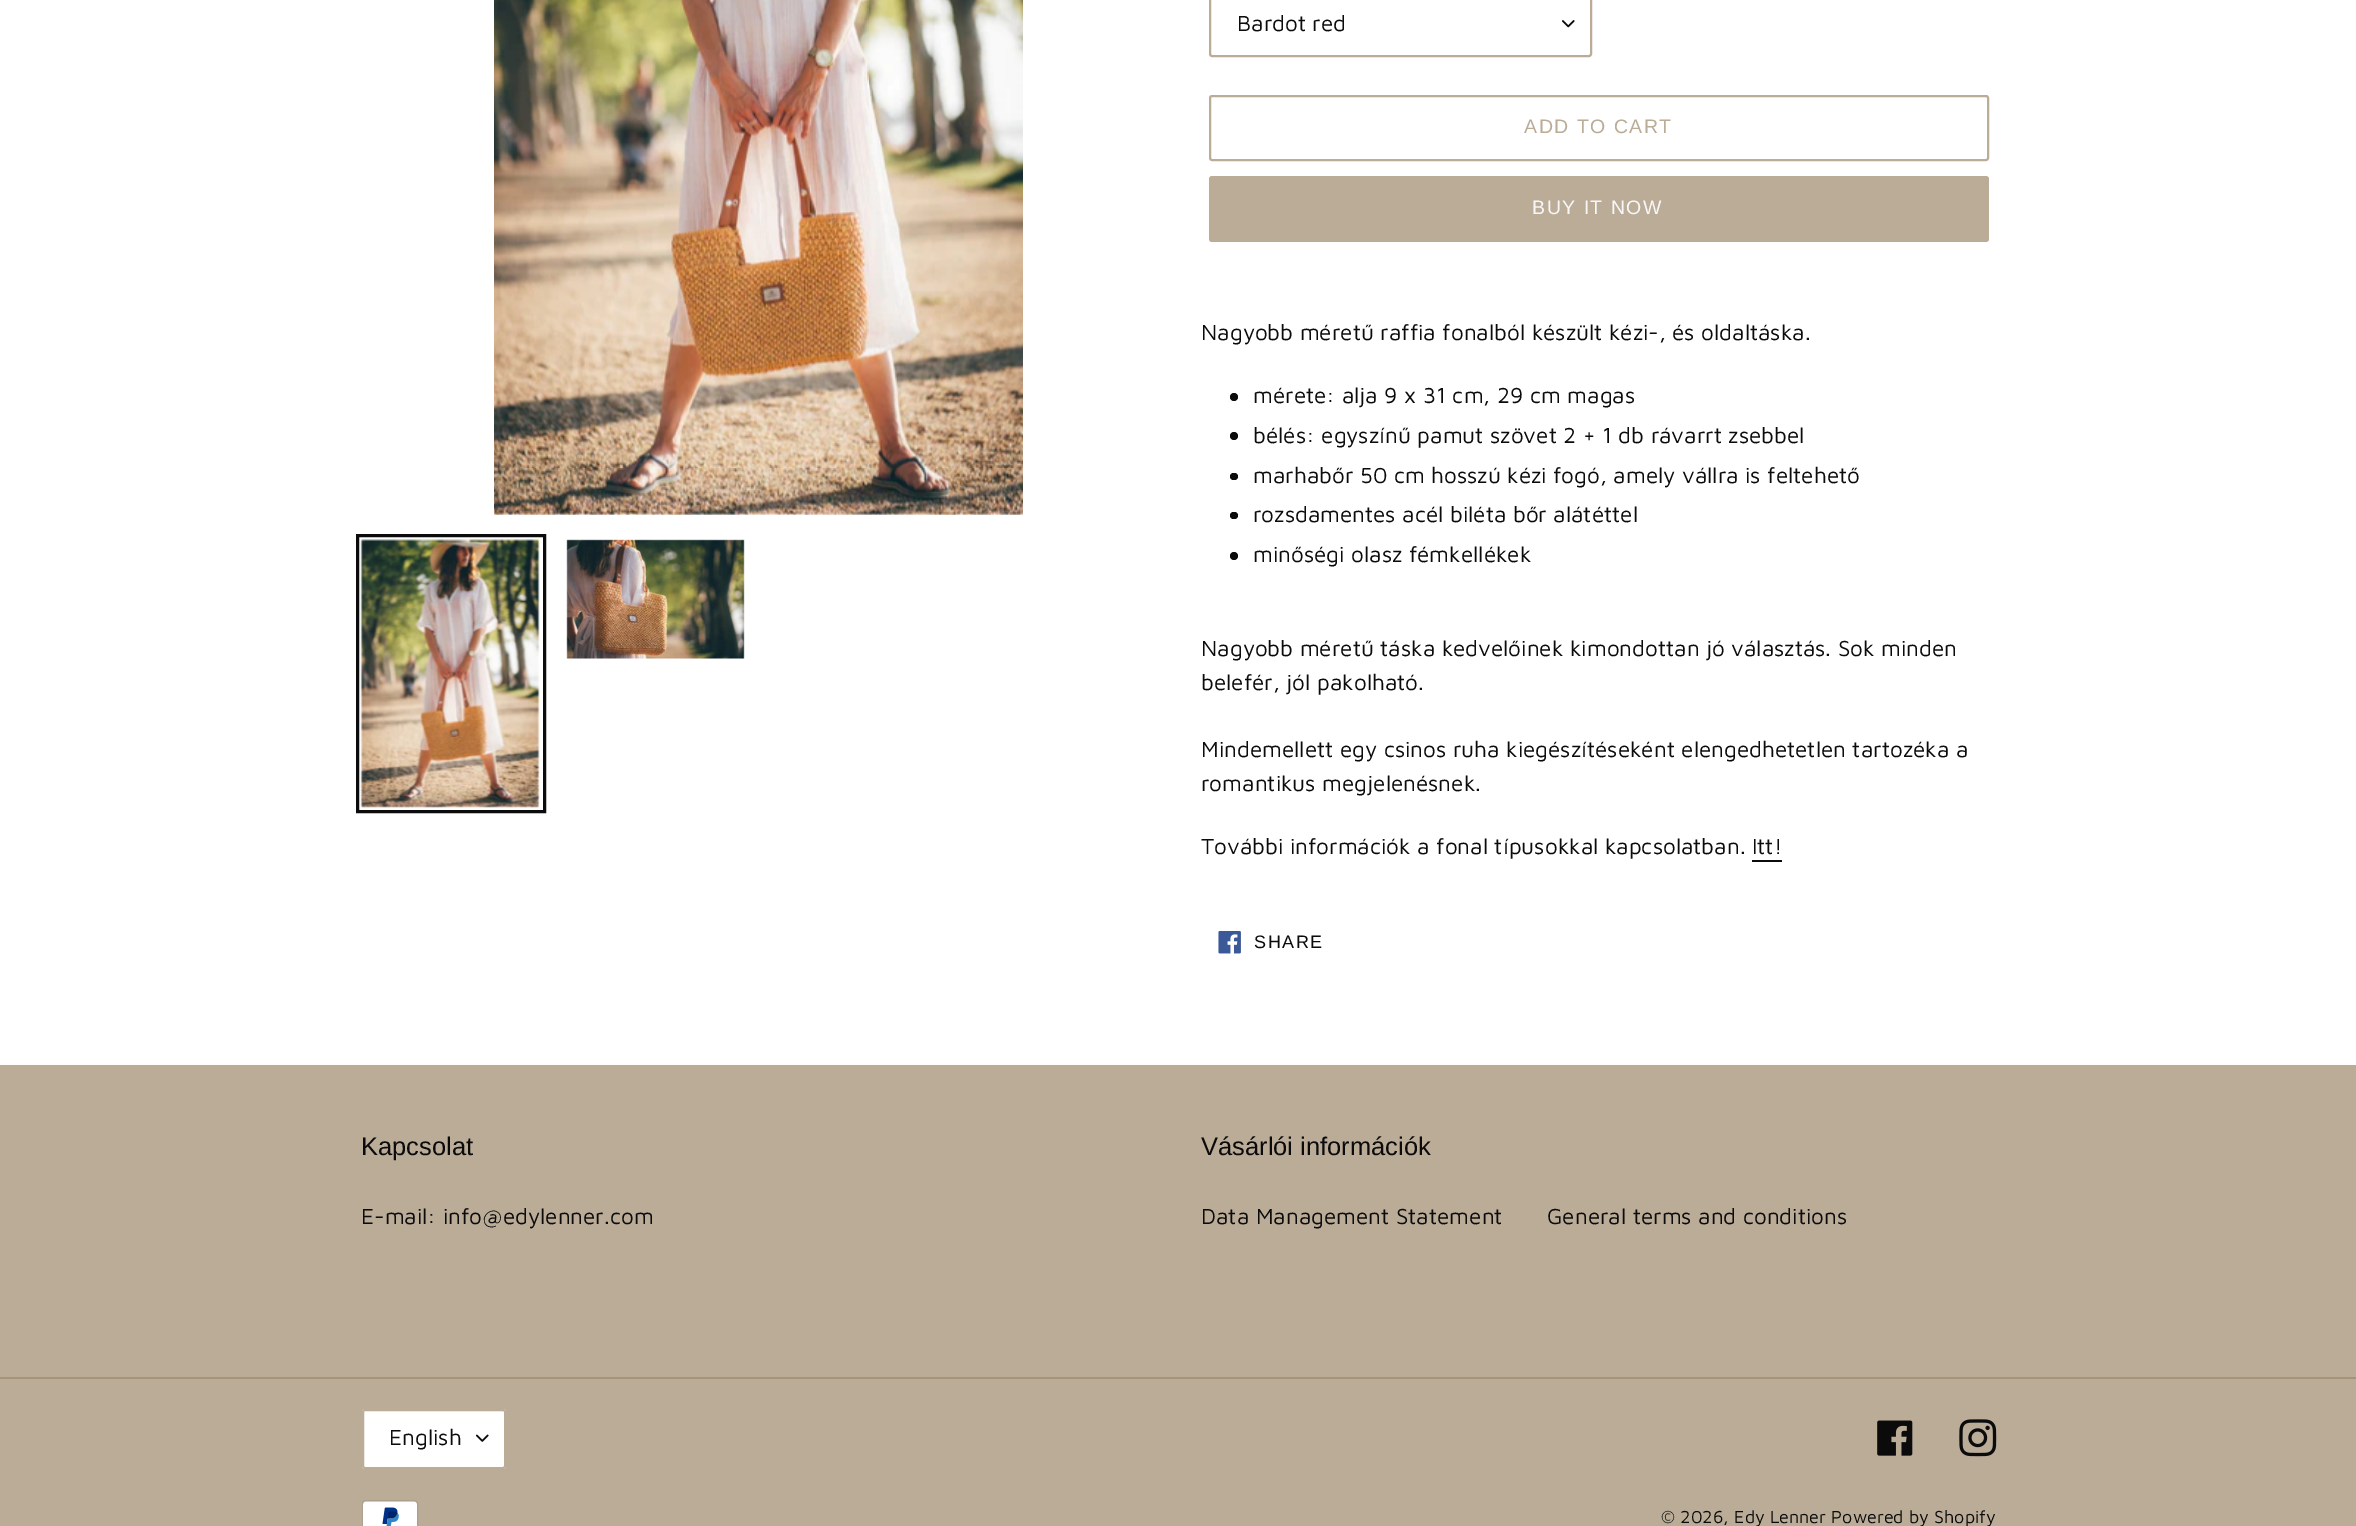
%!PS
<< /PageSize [2356 1526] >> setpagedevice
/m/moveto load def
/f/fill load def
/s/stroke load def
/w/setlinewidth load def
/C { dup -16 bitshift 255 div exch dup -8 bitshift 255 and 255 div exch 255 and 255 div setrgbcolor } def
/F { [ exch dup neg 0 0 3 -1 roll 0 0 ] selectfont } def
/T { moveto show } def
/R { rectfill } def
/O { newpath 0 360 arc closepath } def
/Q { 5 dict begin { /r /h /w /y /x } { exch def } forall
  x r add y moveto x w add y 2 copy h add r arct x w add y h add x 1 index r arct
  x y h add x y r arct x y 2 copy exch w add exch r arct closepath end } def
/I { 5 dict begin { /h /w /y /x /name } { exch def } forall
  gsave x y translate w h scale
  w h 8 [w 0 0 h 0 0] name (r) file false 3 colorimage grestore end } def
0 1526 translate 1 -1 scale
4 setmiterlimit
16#FFFFFF C
0 0 2356 1526 R
(1.rgb) 494 0 529 515 I
16#0B0B0B C
3 w
357.5 535.5 187 276 rectstroke
(2.rgb) 360 539 180 269 I
(3.rgb) 566 539 179 120 I
(4.rgb) 1562 20 13 8 I
16#BBAC98 C
2 w
1210 -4 381 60 2 Q s
/MavenPro-Regular 22.5 F
16#0B0B0B C
(Bardot red) 1237 31 T
16#BBAC98 C
1210 96 778 64 2 Q s
/LiberationSans-Regular 19.5 F
1524 133 m 1.5 0 (ADD TO CART) ashow
1209 176 780 66 3 Q f
16#F7F7F7 C
1532 214 m 1.5 0 (BUY IT NOW) ashow
/MavenPro-Regular 22.5 F
16#0B0B0B C
(Nagyobb méretű raffia fonalból készült kézi-, és oldaltáska.) 1201 340 T
1234 397 4 O f
(mérete: alja 9 x 31 cm, 29 cm magas) 1253 403 T
1234 436 4 O f
(bélés: egyszínű pamut szövet 2 + 1 db rávarrt zsebbel) 1253 443 T
1230 473 8 7 3.5 Q f
(marhabőr 50 cm hosszú kézi fogó, amely vállra is feltehető) 1253 483 T
1230 512 8 7 3.5 Q f
(rozsdamentes acél biléta bőr alátéttel) 1253 522 T
1234 556 4 O f
(minőségi olasz fémkellékek) 1253 562 T
(Nagyobb méretű táska kedvelőinek kimondottan jó választás. Sok minden) 1201 656 T
(belefér, jól pakolható.) 1201 690 T
(Mindemellett egy csinos ruha kiegészítéseként elengedhetetlen tartozéka a) 1201 757 T
(romantikus megjelenésnek.) 1201 791 T
(További információk a fonal típusokkal kapcsolatban. Itt!) 1201 854 T
1752 860 30 2 R
(5.rgb) 1218 931 23 23 I
/LiberationSans-Regular 18 F
1254 948 m 1.5 0 (SHARE) ashow
16#BBAC98 C
0 1065 2356 461 R
/LiberationSans-Regular 25.5 F
16#0B0B0B C
(Kapcsolat) 361 1155 T
/MavenPro-Regular 22.5 F
(E-mail: info@edylenner.com) 361 1224 T
/LiberationSans-Regular 25.5 F
(Vásárlói információk) 1201 1155 T
/MavenPro-Regular 22.5 F
(Data Management Statement) 1201 1224 T
(General terms and conditions) 1547 1224 T
16#A79379 C
0 1377 2356 2 R
16#FFFFFF C
362 1409 144 60 3 Q f
(6.rgb) 476 1434 13 8 I
16#BBAC98 C
363 1410 142 58 2 Q s
16#0B0B0B C
(English) 389 1445 T
(7.rgb) 1877 1420 36 36 I
(8.rgb) 1959 1419 38 38 I
(9.rgb) 362 1500 57 26 I
/MavenPro-Regular 18 F
(© 2026, Edy Lenner Powered by Shopify) 1661 1523 T
showpage
